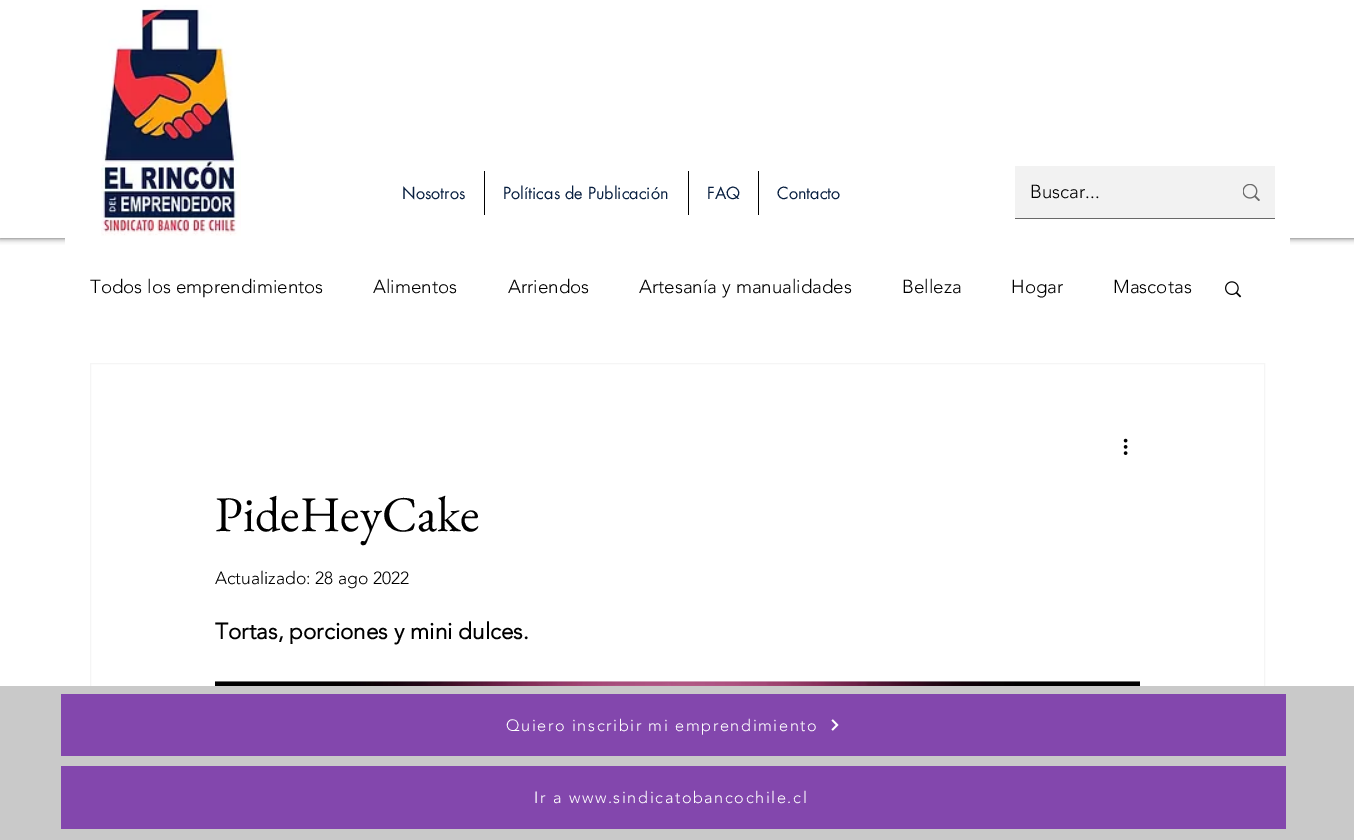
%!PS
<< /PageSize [1354 840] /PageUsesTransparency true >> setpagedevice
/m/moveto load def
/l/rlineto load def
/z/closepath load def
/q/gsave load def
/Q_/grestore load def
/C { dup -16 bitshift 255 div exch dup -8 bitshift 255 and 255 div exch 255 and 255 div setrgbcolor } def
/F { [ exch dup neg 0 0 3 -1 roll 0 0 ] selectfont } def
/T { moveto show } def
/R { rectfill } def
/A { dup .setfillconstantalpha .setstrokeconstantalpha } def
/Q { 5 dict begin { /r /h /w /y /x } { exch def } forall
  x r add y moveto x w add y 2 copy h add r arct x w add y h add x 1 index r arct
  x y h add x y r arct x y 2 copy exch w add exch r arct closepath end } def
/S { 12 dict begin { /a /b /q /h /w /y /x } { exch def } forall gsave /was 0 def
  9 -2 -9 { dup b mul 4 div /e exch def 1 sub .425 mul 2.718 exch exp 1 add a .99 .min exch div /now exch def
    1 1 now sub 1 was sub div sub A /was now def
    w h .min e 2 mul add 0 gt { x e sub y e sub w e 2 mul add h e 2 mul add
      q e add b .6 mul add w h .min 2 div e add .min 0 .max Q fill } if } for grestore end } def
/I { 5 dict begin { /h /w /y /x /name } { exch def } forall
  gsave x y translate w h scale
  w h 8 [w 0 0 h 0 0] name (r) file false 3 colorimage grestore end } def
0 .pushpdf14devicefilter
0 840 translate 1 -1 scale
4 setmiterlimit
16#FFFFFF C
0 0 1354 840 R
q
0 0 m 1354 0 l 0 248 l -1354 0 l z 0 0 m 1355 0 l 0 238 l -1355 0 l z eoclip newpath
16#000000 C
0 0 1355 238 0 3 .7 S
Q_
0.6 A
0 237 1354 1 R
1 A
(1.rgb) 101 5 140 231 I
/futura-Regular 16.25 F
16#071E3F C
(Nosotros) 402 199 T
16#000000 C
484 171 1 44 R
16#071E3F C
(Políticas de Publicación) 503 199 T
16#000000 C
688 171 1 44 R
16#071E3F C
(FAQ) 707 199 T
16#000000 C
758 171 1 44 R
16#071E3F C
(Contacto) 777 199 T
16#696969 C
1015 218 260 1 R
16#F2F2F2 C
1015 166 260 52 R
/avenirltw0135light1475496-Light 18.75 F
16#000000 C
(Buscar...) 1030 198 T
(2.rgb) 1243 184 17 17 I
16#FFFFFF C
65 238 1225 7 R
16#000000 C
(Todos los emprendimientos) 90 293 T
(Alimentos) 373 293 T
(Arriendos) 508 293 T
(Artesanía y manualidades) 639 293 T
(Belleza) 902 293 T
(Hogar) 1011 293 T
(Mascotas) 1113 293 T
(3.rgb) 1225 281 17 17 I
16#F5F5F5 C
90.5 363.5 1174 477 rectstroke
(4.rgb) 1123 438 5 17 I
/EBGaramond-Regular 50 F
16#000000 C
(PideHeyCake) 215 531 T
/avenirltw0135light1475496-Light 17.5 F
(Actualizado: 28 ago 2022) 215 584 T
/avenirltw0135light1475496-Bold 22.5 F
(Tortas, porciones y mini dulces.) 215 639 T
(5.rgb) 215 681 925 5 I
16#C9C9C9 C
0 686 1354 154 R
16#8347AD C
61 694 1225 62 R
/avenirltw0135light1475496-Light 16.25 F
16#FFFFFF C
506 731 m 1.6 0 (Quiero inscribir mi emprendimiento) ashow
(6.rgb) 831 719 8 12 I
16#8347AD C
61 766 1225 63 R
16#FFFFFF C
534 803 m 1.6 0 (Ir a www.sindicatobancochile.cl) ashow
.poppdf14devicefilter showpage
